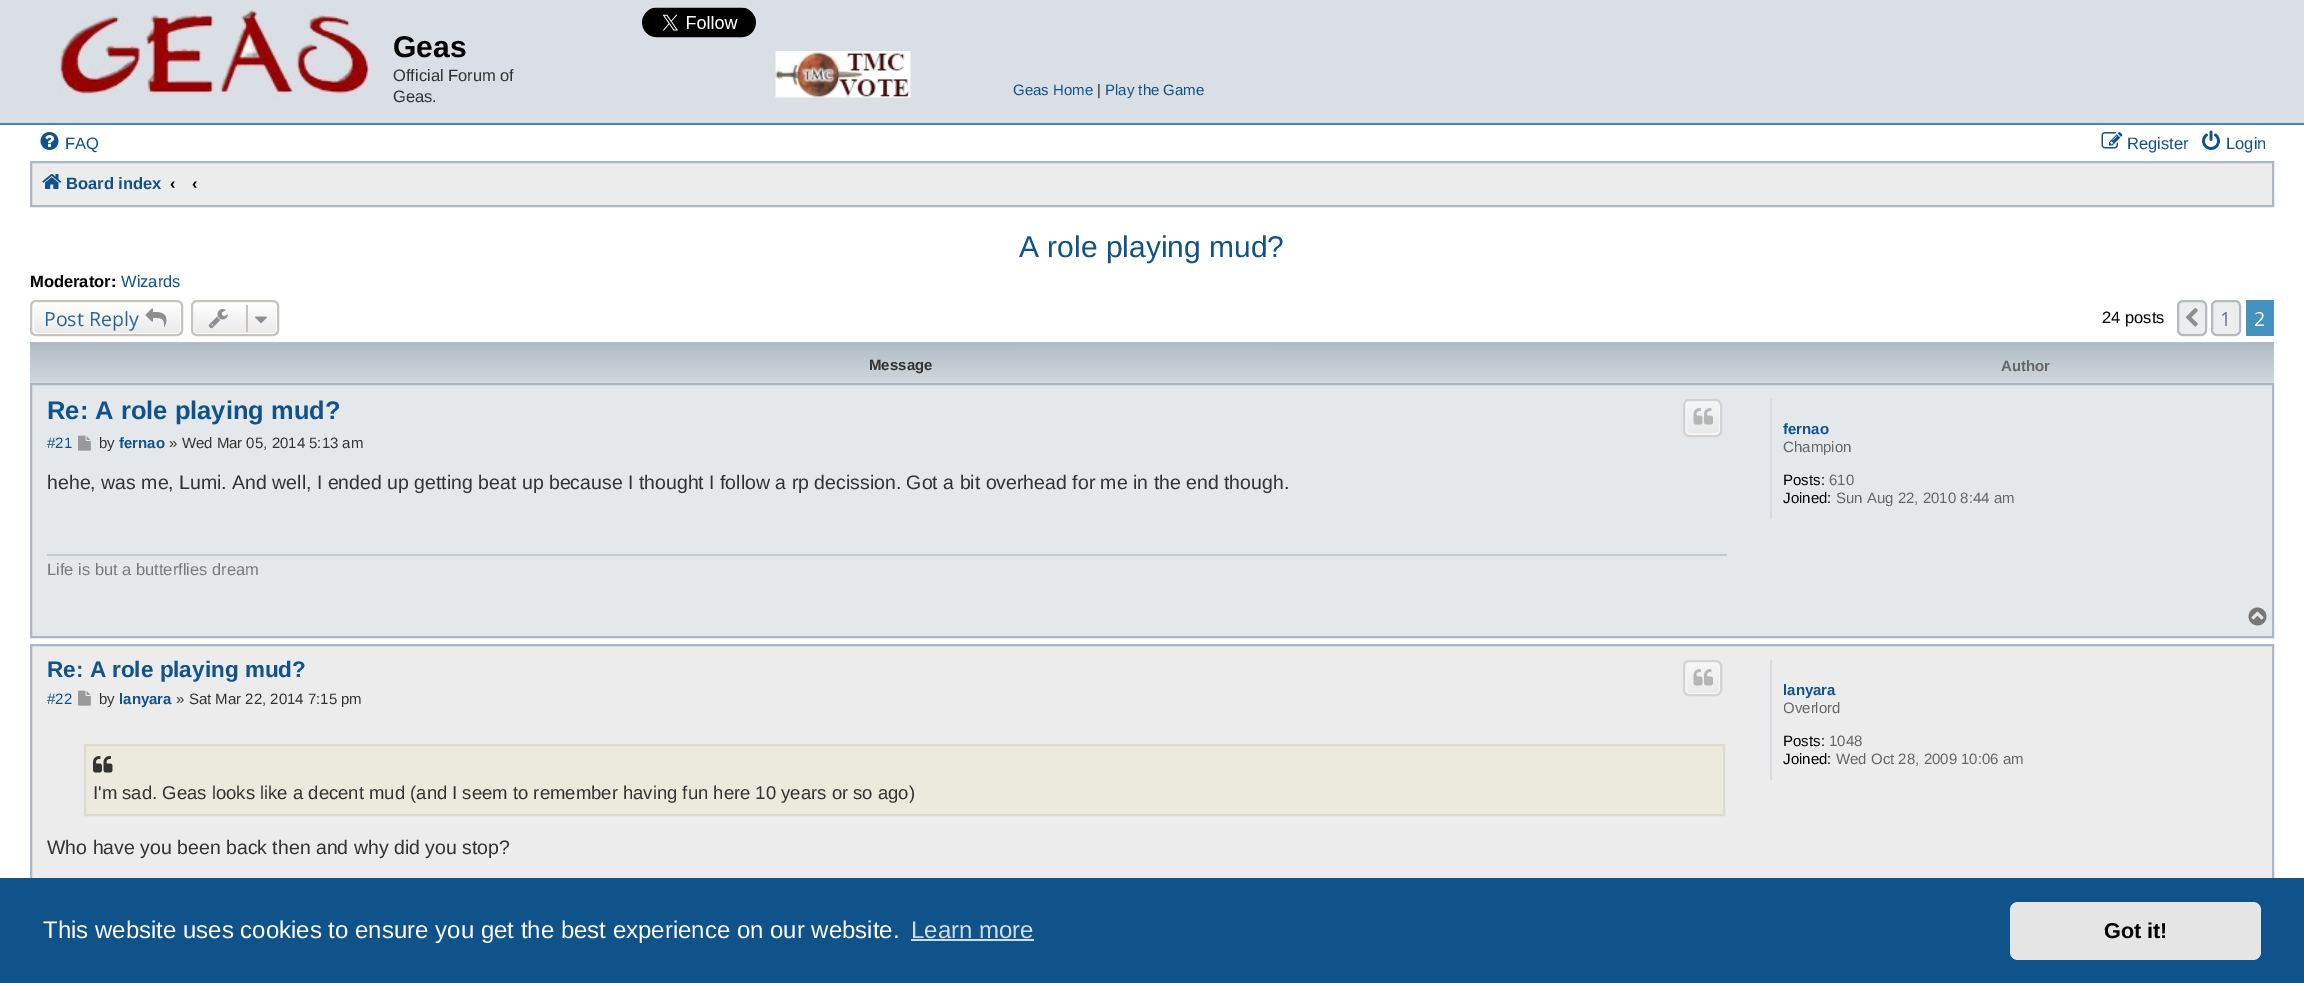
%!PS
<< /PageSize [2304 983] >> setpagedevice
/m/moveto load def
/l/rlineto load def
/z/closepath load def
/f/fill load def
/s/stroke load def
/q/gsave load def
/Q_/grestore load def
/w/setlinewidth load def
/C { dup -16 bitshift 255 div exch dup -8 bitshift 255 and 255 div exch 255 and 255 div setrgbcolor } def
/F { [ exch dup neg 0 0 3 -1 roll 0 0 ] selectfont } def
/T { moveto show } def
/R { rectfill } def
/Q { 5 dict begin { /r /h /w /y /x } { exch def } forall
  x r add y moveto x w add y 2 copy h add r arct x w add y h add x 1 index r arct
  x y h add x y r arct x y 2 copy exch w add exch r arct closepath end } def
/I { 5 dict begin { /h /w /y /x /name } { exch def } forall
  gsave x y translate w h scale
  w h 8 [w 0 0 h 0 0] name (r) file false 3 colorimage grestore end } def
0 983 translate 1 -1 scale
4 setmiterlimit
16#FFFFFF C
0 0 2304 983 R
16#D9DFE4 C
0 0 2304 123 R
16#4787A7 C
0 123 2304 2 R
(1.rgb) 57 7 314 91 I
/LiberationSans-Bold 30 F
16#000000 C
(Geas) 393 57 T
/LiberationSans-Regular 16.5 F
16#333333 C
(Official Forum of) 393 81 T
(Geas.) 393 102 T
(2.rgb) 642 7 114 31 I
(3.rgb) 775 51 136 47 I
/LiberationSans-Regular 15 F
16#105289 C
(Geas Home) 1013 95 T
16#333333 C
(|) 1097 95 T
16#105289 C
(Play the Game) 1105 95 T
(4.rgb) 40 132 19 18 I
/LiberationSans-Regular 16.5 F
(FAQ) 65 149 T
(5.rgb) 2101 132 22 17 I
(Register) 2127 149 T
(6.rgb) 2202 130 18 20 I
(Login) 2226 149 T
16#ECECEC C
31 162 m 2242 0 l 0 44 l -2242 0 l z q f Q_
16#A9B8C2 C
2 w
s
(7.rgb) 42 174 20 15 I
/LiberationSans-Bold 16.5 F
16#105289 C
(Board index) 66 189 T
16#000000 C
(‹) 170 189 T
(‹) 192 189 T
/LiberationSans-Regular 30 F
16#105289 C
(A role playing mud?) 1019 257 T
/LiberationSans-Bold 16.5 F
16#000000 C
(Moderator:) 30 287 T
/LiberationSans-Regular 16.5 F
16#105289 C
(Wizards) 121 287 T
q
30 300 153 36 6 Q clip newpath
q 30 302 m 153 0 l 0 33 l -153 0 l z clip newpath
<< /ShadingType 2 /ColorSpace /DeviceRGB /Coords [107 302 107 335] /Extend [true true] /Function << /FunctionType 2 /Domain [0 1] /C0 [1 1 1] /C1 [.914 .914 .914] /N 1 >> >> shfill Q_
Q_
16#FFFFFF C
33 303 148 31 4 Q s
16#C7C3BF C
31 301 151 34 5 Q s
/OpenSans-Regular 19.5 F
16#2A6496 C
(Post Reply) 44 326 T
(8.rgb) 145 308 22 19 I
q
191 300 88 36 6 Q clip newpath
q 191 302 m 88 0 l 0 33 l -88 0 l z clip newpath
<< /ShadingType 2 /ColorSpace /DeviceRGB /Coords [235 302 235 335] /Extend [true true] /Function << /FunctionType 2 /Domain [0 1] /C0 [1 1 1] /C1 [.914 .914 .914] /N 1 >> >> shfill Q_
Q_
16#FFFFFF C
193 303 84 31 4 Q s
16#C7C3BF C
192 301 86 34 5 Q s
(9.rgb) 208 309 20 20 I
246 305 2 27 R
(10.rgb) 255 316 12 8 I
/LiberationSans-Regular 16.5 F
16#000000 C
(24 posts) 2102 323 T
16#ECEDEE C
2178 301 28 34 5 Q q f Q_
16#B4BAC0 C
s
(11.rgb) 2185 307 13 20 I
16#ECEDEE C
2212 301 28 34 5 Q q f Q_
16#B4BAC0 C
s
/OpenSans-Regular 19.5 F
16#5C758C C
(1) 2220 326 T
16#4692BF C
2246 300 28 36 R
16#FFFFFF C
(2) 2254 326 T
16#D3D9DE C
30 381 2244 2 R
(12.rgb) 30 342 2244 39 I
/LiberationSans-Bold 15 F
16#333333 C
(Message) 869 370 T
16#666666 C
(Author) 2001 371 T
16#E5E8EA C
31 384 m 2242 0 l 0 253 l -2242 0 l z q f Q_
16#A9B8C2 C
s
/LiberationSans-Bold 25.5 F
16#105289 C
(Re: A role playing mud?) 47 419 T
q
1683 399 39 38 6 Q clip newpath
q 1683 401 m 39 0 l 0 34 l -39 0 l z clip newpath
<< /ShadingType 2 /ColorSpace /DeviceRGB /Coords [1703 401 1703 435] /Extend [true true] /Function << /FunctionType 2 /Domain [0 1] /C0 [.961 .965 .969] /C1 [.906 .914 .914] /N 1 >> >> shfill Q_
Q_
16#F5F6F7 C
1686 402 34 32 4 Q s
16#D3D2D0 C
1684 400 37 36 5 Q s
(13.rgb) 1693 408 20 17 I
/LiberationSans-Regular 15 F
16#105289 C
(#21) 47 448 T
(14.rgb) 78 435 13 16 I
16#333333 C
(by) 99 448 T
/LiberationSans-Bold 15 F
16#105289 C
(fernao) 119 448 T
/LiberationSans-Regular 15 F
16#333333 C
(» Wed Mar 05, 2014 5:13 am) 169 448 T
/LiberationSans-Regular 19.5 F
(hehe, was me, Lumi. And well, I ended up getting beat up because I thought I follow a rp decission. Got a bit overhead for me in the end though.) 47 489 T
16#C1CBD2 C
47 554 1680 2 R
/LiberationSans-Regular 16.5 F
16#7A7B7C C
(Life is but a butterflies dream) 47 575 T
16#D5DBE0 C
1770 399 2 120 R
/LiberationSans-Bold 15 F
16#105289 C
(fernao) 1783 434 T
/LiberationSans-Regular 15 F
16#666666 C
(Champion) 1783 452 T
16#000000 C
(Posts:) 1783 485 T
16#666666 C
(610) 1829 485 T
16#000000 C
(Joined:) 1783 503 T
16#666666 C
(Sun Aug 22, 2010 8:44 am) 1836 503 T
(15.rgb) 2248 607 19 19 I
16#ECECEC C
32 646 2240 232 R
16#A9B8C2 C
31 645 2242 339 rectstroke
/LiberationSans-Bold 22.5 F
16#105289 C
(Re: A role playing mud?) 47 677 T
q
1683 660 39 36 6 Q clip newpath
q 1683 662 m 39 0 l 0 33 l -39 0 l z clip newpath
<< /ShadingType 2 /ColorSpace /DeviceRGB /Coords [1703 662 1703 695] /Extend [true true] /Function << /FunctionType 2 /Domain [0 1] /C0 [.969 .969 .969] /C1 [.918 .918 .918] /N 1 >> >> shfill Q_
Q_
16#F7F7F7 C
1686 663 34 31 4 Q s
16#D6D3D1 C
1684 661 37 34 5 Q s
(16.rgb) 1693 669 20 17 I
/LiberationSans-Regular 15 F
16#105289 C
(#22) 47 704 T
(17.rgb) 78 690 13 16 I
16#333333 C
(by) 99 704 T
/LiberationSans-Bold 15 F
16#105289 C
(lanyara) 119 704 T
/LiberationSans-Regular 15 F
16#333333 C
(» Sat Mar 22, 2014 7:15 pm) 176 704 T
16#EBEADD C
85 745 m 1639 0 l 0 70 l -1639 0 l z q f Q_
16#DBDBCE C
s
(18.rgb) 93 756 20 17 I
/LiberationSans-Regular 18.5 F
16#333333 C
(I'm sad. Geas looks like a decent mud \(and I seem to remember having fun here 10 years or so ago\)) 93 799 T
/LiberationSans-Regular 19.5 F
(Who have you been back then and why did you stop?) 47 854 T
16#D5DBE0 C
1770 660 2 120 R
/LiberationSans-Bold 15 F
16#105289 C
(lanyara) 1783 695 T
q
1784 699 474 18 rectclip
/LiberationSans-Regular 15 F
16#666666 C
(Overlord) 1783 713 T
Q_
/LiberationSans-Regular 15 F
16#000000 C
(Posts:) 1783 746 T
16#666666 C
(1048) 1829 746 T
16#000000 C
(Joined:) 1783 764 T
16#666666 C
(Wed Oct 28, 2009 10:06 am) 1836 764 T
16#0F538A C
0 878 2304 105 R
/LiberationSans-Regular 24 F
16#FFFFFF C
(This website uses cookies to ensure you get the best experience on our website.) 43 938 T
16#CFDDE8 C
(Learn more) 911 938 T
911 939 123 2 R
16#E5E5E5 C
2010 902 251 58 8 Q f
/LiberationSans-Bold 21.5 F
16#000000 C
(Got it!) 2104 938 T
showpage
